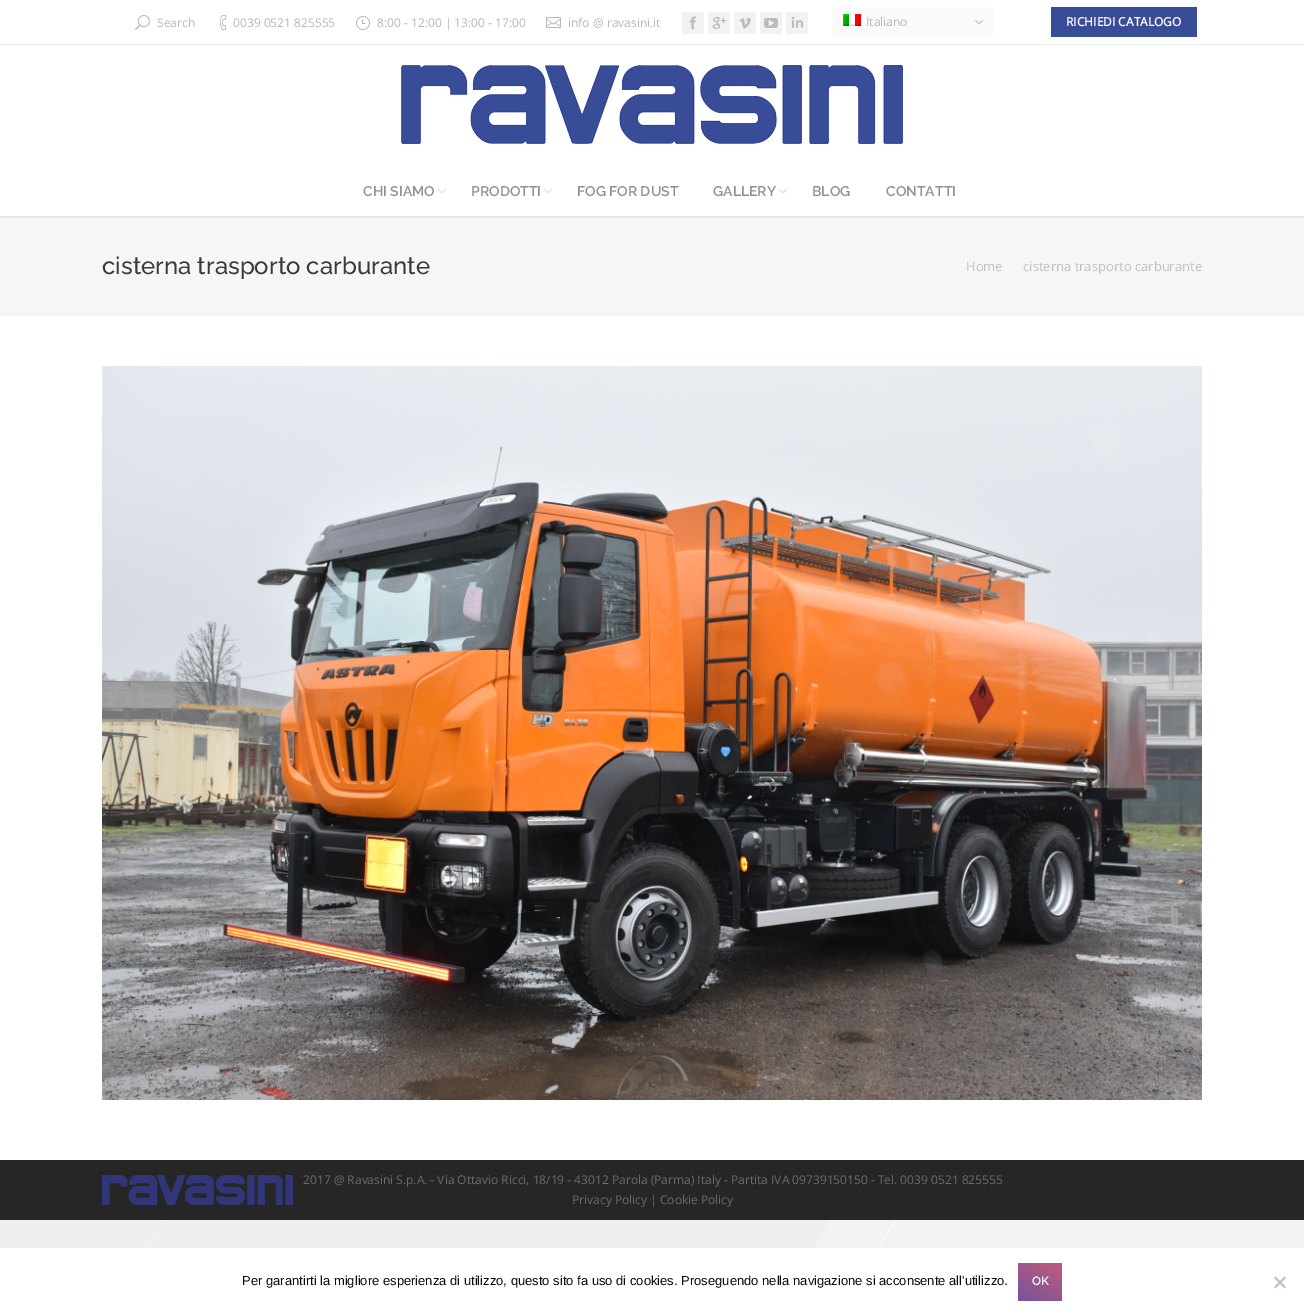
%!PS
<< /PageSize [1304 1316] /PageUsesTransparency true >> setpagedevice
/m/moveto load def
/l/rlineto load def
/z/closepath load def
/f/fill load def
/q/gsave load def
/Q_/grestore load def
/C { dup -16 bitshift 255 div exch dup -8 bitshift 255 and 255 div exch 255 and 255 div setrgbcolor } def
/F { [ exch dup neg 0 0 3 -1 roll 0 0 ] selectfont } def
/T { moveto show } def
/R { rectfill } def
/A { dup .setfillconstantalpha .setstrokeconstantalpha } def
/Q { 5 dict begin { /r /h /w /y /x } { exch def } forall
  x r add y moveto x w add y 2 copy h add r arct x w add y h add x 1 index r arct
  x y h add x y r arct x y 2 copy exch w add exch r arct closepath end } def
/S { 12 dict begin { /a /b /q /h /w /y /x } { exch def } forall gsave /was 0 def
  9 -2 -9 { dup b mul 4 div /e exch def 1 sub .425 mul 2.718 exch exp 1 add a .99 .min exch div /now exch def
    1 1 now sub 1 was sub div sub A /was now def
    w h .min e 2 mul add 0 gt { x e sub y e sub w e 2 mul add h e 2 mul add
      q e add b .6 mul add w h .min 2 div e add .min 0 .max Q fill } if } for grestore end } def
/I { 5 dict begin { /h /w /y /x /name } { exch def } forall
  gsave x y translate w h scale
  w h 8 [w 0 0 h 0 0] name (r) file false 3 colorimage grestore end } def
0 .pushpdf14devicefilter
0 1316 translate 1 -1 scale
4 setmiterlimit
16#FFFFFF C
0 0 1304 1316 R
(1.rgb) 0 1220 1304 28 I
16#F6F6F6 C
0 216 1304 100 R
q
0 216 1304 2 rectclip
16#000000 C
0 0 1304 216 0 2 .15 S
Q_
16#EDEDED C
0 44 1304 1 R
(2.rgb) 135 15 15 15 I
/OpenSans-Regular 12 F
16#B7B7B7 C
(Search) 157 27 T
(3.rgb) 219 15 8 15 I
(0039 0521 825555) 233 27 T
(4.rgb) 356 16 14 14 I
(8:00 - 12:00 | 13:00 - 17:00) 377 27 T
(5.rgb) 546 17 15 11 I
(info @ ravasini.it) 568 27 T
16#F2F2F2 C
682 12 22 22 2 Q f
(6.rgb) 689 16 7 14 I
708 12 22 22 2 Q f
(7.rgb) 712 17 14 12 I
734 12 22 22 2 Q f
(8.rgb) 739 18 12 11 I
760 12 22 22 2 Q f
(9.rgb) 764 18 14 10 I
786 12 22 22 2 Q f
(10.rgb) 791 16 12 12 I
16#FAFAFA C
833 7 160 30 2 Q f
(11.rgb) 843 14 18 12 I
16#B7B7B7 C
(Italiano) 866 26 T
(12.rgb) 975 20 8 5 I
16#394C97 C
1051 7 146 30 R
/OpenSans-Bold 12 F
16#FFFFFF C
(RICHIEDI CATALOGO) 1066 26 T
(13.rgb) 401 65 502 79 I
/Raleway-SemiBold 14 F
16#919191 C
(CHI SIAMO) 363 196 T
(14.rgb) 438 189 8 5 I
(PRODOTTI) 471 196 T
(14.rgb) 544 189 8 5 I
(FOG FOR DUST) 577 196 T
(GALLERY) 713 196 T
(14.rgb) 779 189 8 5 I
(BLOG) 812 196 T
(CONTATTI) 886 196 T
/Raleway-Medium 24 F
16#3A3A3A C
(cisterna trasporto carburante) 102 274 T
/OpenSans-Regular 13 F
16#BFBFBF C
(Home) 966 271 T
(cisterna trasporto carburante) 1023 271 T
(15.rgb) 102 366 1100 734 I
16#262626 C
0 1160 1304 60 R
(16.rgb) 102 1175 191 30 I
/OpenSans-Regular 12 F
16#6B6B6B C
(2017 @ Ravasini S.p.A. - Via Ottavio Ricci, 18/19 - 43012 Parola \(Parma\) Italy - Partita IVA 09739150150 - Tel. 0039 0521 825555) 303 1184 T
(Privacy Policy | Cookie Policy) 572 1204 T
/LiberationSans-Regular 13 F
16#0A0A0A C
(Per garantirti la migliore esperienza di utilizzo, questo sito fa uso di cookies. Proseguendo nella navigazione si acconsente all'utilizzo.) 242 1285 T
q 1018 1263 44 38 2 Q clip newpath
<< /ShadingType 2 /ColorSpace /DeviceRGB /Coords [1026 1306 1054 1258] /Extend [true true] /Function << /FunctionType 2 /Domain [0 1] /C0 [.459 .325 .62] /C1 [.761 .357 .486] /N 1 >> >> shfill Q_
/Raleway-SemiBold 12 F
16#FFFFFF C
(OK) 1032 1285 T
16#C0C0C0 C
1284.5 1276.5 m 1.5 1.5 l -10.5 10.5 l -1.5 -1.5 l z f
1274 1278 m 1.5 -1.5 l 10.5 10.5 l -1.5 1.5 l z f
.poppdf14devicefilter showpage
